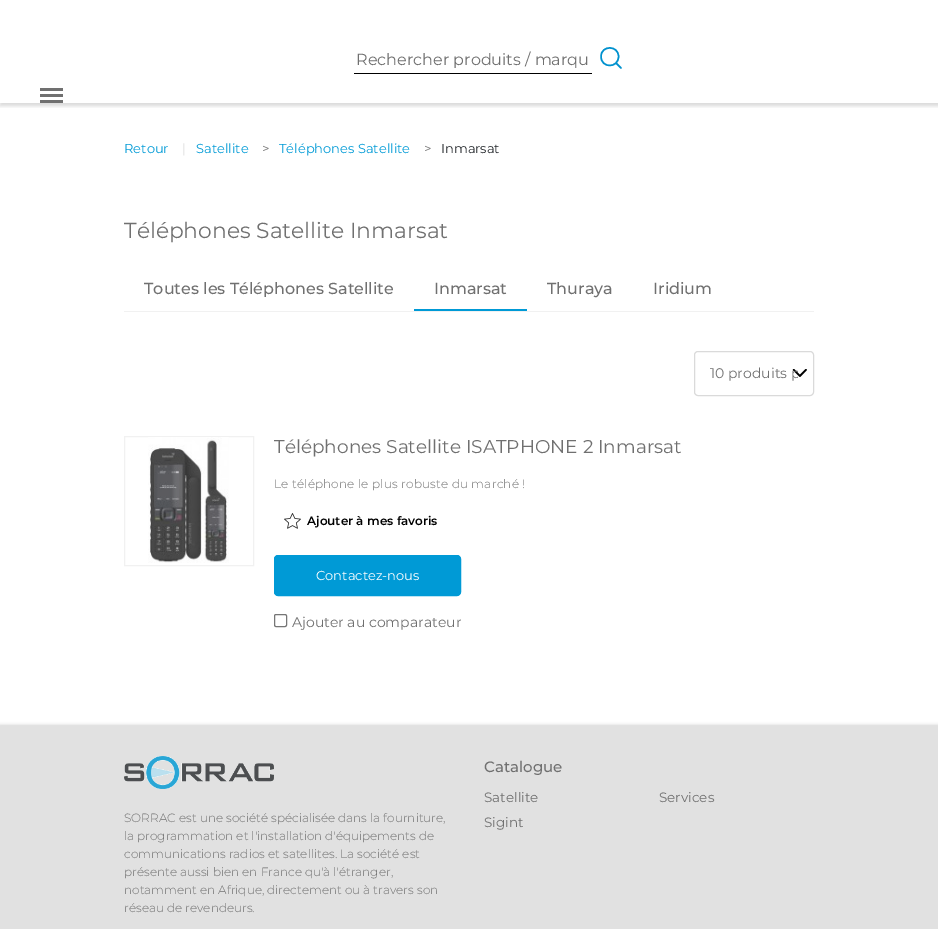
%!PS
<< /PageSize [938 929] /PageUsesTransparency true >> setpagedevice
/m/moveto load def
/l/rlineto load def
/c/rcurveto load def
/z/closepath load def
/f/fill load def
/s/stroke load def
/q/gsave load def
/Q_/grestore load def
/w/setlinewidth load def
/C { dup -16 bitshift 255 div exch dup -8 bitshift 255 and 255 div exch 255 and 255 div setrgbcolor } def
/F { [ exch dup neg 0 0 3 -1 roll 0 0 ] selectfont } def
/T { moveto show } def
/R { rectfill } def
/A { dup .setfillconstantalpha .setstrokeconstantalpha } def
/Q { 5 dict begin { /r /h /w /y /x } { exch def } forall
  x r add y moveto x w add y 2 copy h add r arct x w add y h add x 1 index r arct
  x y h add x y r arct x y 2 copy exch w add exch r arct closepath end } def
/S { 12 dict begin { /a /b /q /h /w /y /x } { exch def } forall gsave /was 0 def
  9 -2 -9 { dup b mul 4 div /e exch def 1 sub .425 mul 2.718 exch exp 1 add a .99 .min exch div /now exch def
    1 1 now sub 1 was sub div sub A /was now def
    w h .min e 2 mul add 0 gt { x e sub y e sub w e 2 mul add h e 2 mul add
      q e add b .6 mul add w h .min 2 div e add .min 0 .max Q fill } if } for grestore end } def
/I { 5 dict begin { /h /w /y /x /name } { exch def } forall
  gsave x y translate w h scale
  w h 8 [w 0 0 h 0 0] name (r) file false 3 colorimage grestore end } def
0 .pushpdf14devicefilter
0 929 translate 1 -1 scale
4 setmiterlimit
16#FFFFFF C
0 0 938 929 R
q
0 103 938 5 rectclip
16#000000 C
0 1 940 105 0 2 .15 S
Q_
16#000000 C
354 73 238 1 R
/Montserrat-Regular 16 F
16#707070 C
(Rechercher produits / marqu) 356 65 T
16#0091CE C
1.5 w
1 setlinecap
1 setlinejoin
618.5 56.5 m 0 12 -17.5 12 -17.5 0 c 0 -11.5 17.5 -11.5 17.5 0 c z 621 68 m -5 -5 l s
16#707070 C
40 88 23 3 R
40 94 23 3 R
40 100 23 3 R
/Montserrat-Regular 13 F
16#009AD6 C
(Retour) 124 153 T
16#DADADA C
(|) 182 153 T
16#009AD6 C
(Satellite) 196 153 T
16#707070 C
(>) 262 153 T
16#009AD6 C
(Téléphones Satellite) 279 153 T
16#707070 C
(>) 424 153 T
16#212529 C
(Inmarsat) 441 153 T
/Montserrat-Regular 21.8 F
16#707070 C
(Téléphones Satellite Inmarsat) 124 238 T
/Montserrat-Medium 16 F
(Toutes les Téléphones Satellite) 144 294 T
(Inmarsat) 434 294 T
16#009AD6 C
414 309 113 2 R
16#707070 C
(Thuraya) 547 294 T
(Iridium) 653 294 T
16#F1F1F1 C
124 311 690 1 R
(1.rgb) 792 369 15 8 I
16#DADADA C
1 w
0 setlinecap
0 setlinejoin
694.5 351.5 119 44 3.5 Q s
q
710 363 88 21 rectclip
/Montserrat-Regular 14 F
16#707070 C
(10 produits p) 710 378 T
Q_
16#F1F1F1 C
124.5 436.5 129 129 rectstroke
(2.rgb) 148 437 81 126 I
/Montserrat-Regular 18.5 F
16#707070 C
(Téléphones Satellite ISATPHONE 2 Inmarsat) 274 453 T
/Montserrat-Light 12 F
274 488 m .2 0 (Le téléphone le plus robuste du marché !) ashow
(3.rgb) 284 513 17 16 I
/Montserrat-SemiBold 12 F
16#000000 C
(Ajouter à mes favoris) 307 525 T
16#009AD6 C
274.5 555.5 186 40 3.5 Q q f Q_
s
/Montserrat-Regular 13 F
16#FFFFFF C
(Contactez-nous) 316 580 T
16#767676 C
274.5 614.5 12 12 1.5 Q s
/Montserrat-Regular 14 F
16#707070 C
(Ajouter au comparateur) 292 627 T
16#727272 C
0 726 938 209 0 2 .5 S
16#E1E1E1 C
0 726 938 203 R
/Montserrat-Medium 15 F
16#707070 C
(Catalogue) 484 772 T
/Montserrat-Regular 13.5 F
(Satellite) 484 802 T
(Services) 659 802 T
(Sigint) 484 827 T
(4.rgb) 124 756 150 33 I
/Montserrat-Light 12 F
(SORRAC est une société spécialisée dans la fourniture,) 124 822 T
(la programmation et l'installation d'équipements de) 124 840 T
(communications radios et satellites. La société est) 124 858 T
(présente aussi bien en France qu'à l'étranger,) 124 876 T
(notamment en Afrique, directement ou à travers son) 124 894 T
(réseau de revendeurs.) 124 912 T
.poppdf14devicefilter showpage
